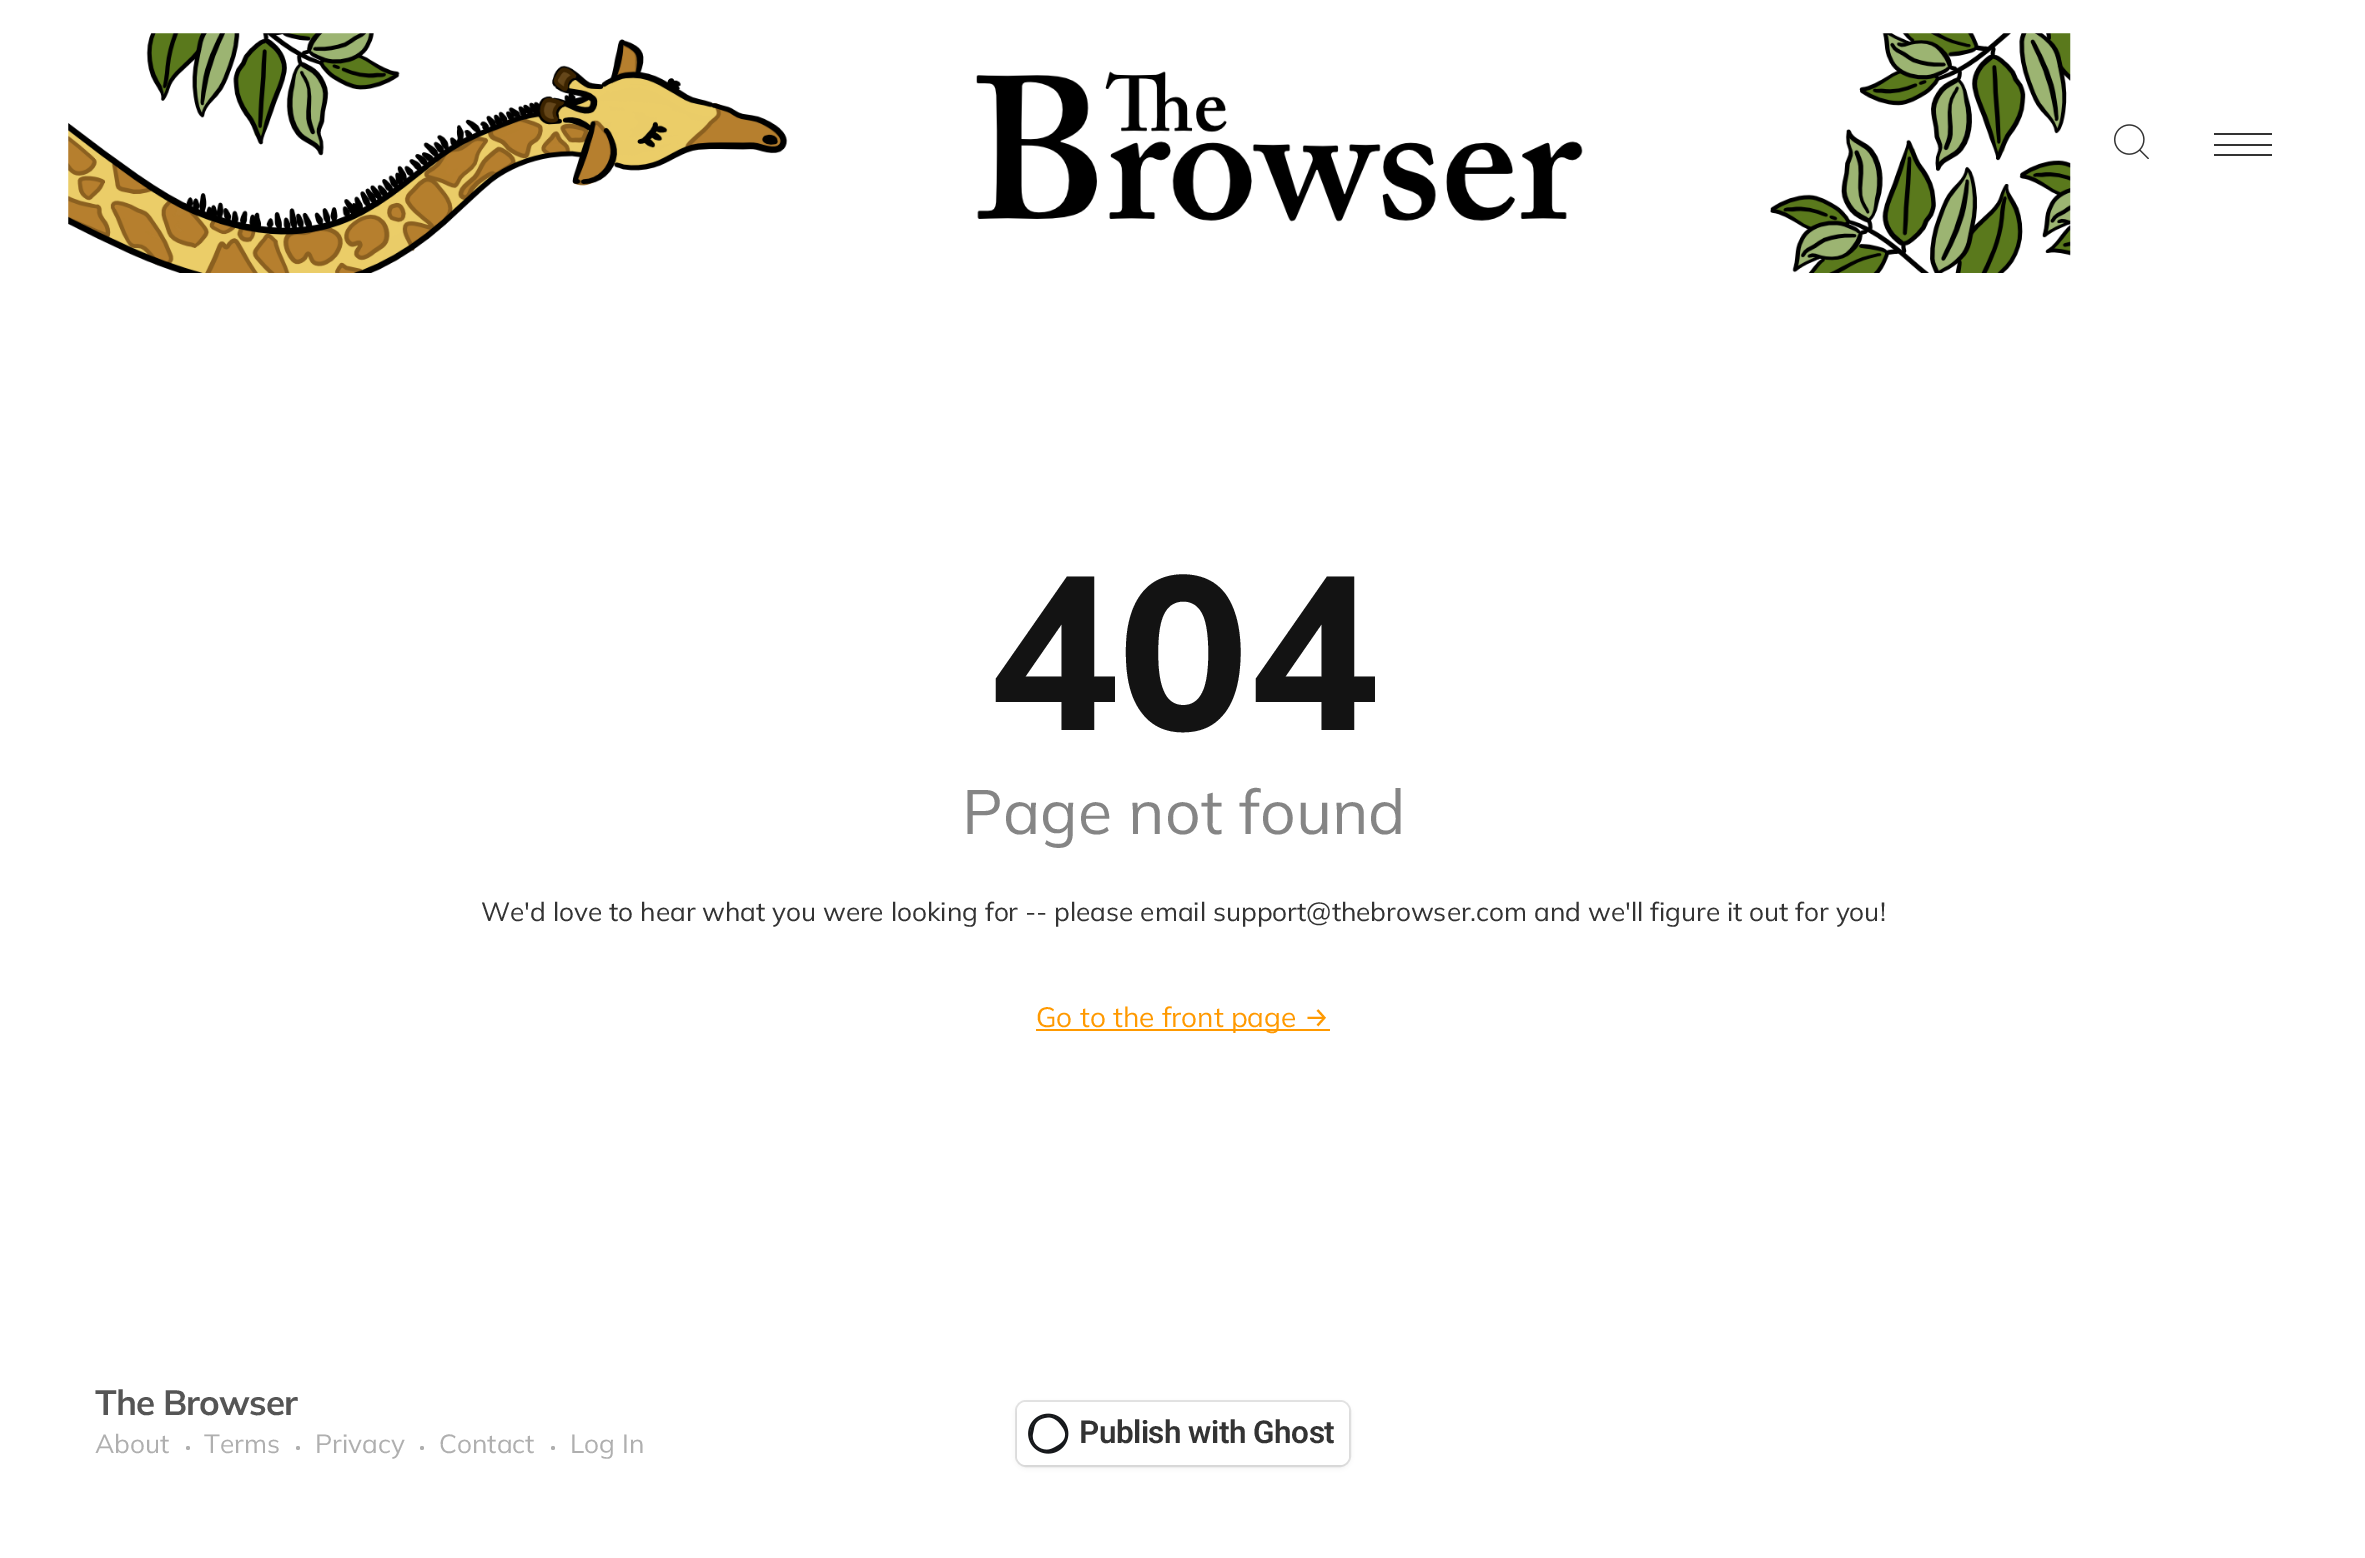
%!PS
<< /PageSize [2365 1558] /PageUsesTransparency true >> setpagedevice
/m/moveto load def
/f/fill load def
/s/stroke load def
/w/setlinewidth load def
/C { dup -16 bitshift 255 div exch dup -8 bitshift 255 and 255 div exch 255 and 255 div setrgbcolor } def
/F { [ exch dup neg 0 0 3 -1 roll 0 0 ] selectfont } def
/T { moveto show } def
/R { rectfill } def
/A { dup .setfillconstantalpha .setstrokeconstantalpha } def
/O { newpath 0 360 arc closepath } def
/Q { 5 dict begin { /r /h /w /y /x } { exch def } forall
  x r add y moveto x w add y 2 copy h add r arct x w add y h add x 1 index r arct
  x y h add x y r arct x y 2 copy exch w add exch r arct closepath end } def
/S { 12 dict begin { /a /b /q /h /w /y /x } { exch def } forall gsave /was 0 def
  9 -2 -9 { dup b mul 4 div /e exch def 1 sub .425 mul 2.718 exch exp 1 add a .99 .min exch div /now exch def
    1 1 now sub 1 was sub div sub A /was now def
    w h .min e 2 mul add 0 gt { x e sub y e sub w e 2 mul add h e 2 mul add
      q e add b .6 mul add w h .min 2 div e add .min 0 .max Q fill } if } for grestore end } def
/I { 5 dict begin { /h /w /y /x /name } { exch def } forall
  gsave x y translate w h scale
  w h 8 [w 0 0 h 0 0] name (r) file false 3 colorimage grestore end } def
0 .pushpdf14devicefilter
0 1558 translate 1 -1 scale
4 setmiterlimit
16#FFFFFF C
0 0 2365 1558 R
(1.rgb) 68 33 2003 240 I
(2.rgb) 2114 124 35 35 I
16#333333 C
2214 133 58 2 R
2214 154 58 2 R
2214 144 58 2 R
/Mulish-ExtraBold 218 F
16#131313 C
988 730 m -.9 0 (404) ashow
/Mulish-Regular 62.5 F
16#858585 C
(Page not found) 962 834 T
/Mulish-Regular 26.25 F
16#333333 C
(We'd love to hear what you were looking for -- please email support@thebrowser.com and we'll figure it out for you!) 481 921 T
16#FF9900 C
1036 1029 294 2 R
/Mulish-Regular 28 F
(Go to the front page) 1036 1027 T
/FiraSans-Regular 28 F
(→) 1304 1027 T
/Mulish-Bold 35 F
16#555555 C
95 1415 m -.9 0 (The Browser) ashow
/Mulish-Regular 26.25 F
16#AFAFAF C
(About) 95 1453 T
188 1448 2 O f
(Terms) 204 1453 T
298 1448 2 O f
(Privacy) 315 1453 T
422 1448 2 O f
(Contact) 439 1453 T
553 1448 2 O f
(Log In) 570 1453 T
16#000000 C
1017 1404 332 63 9 2.5 .08 S
0.1 A
2 w
1016 1401 334 65 10 Q s
1 A
16#FFFFFF C
1017 1402 332 63 9 Q f
(3.rgb) 1028 1413 41 41 I
/Roboto-SemiBold 31.5 F
16#333333 C
1079 1443 m -.5 0 (Publish with Ghost) ashow
.poppdf14devicefilter showpage
